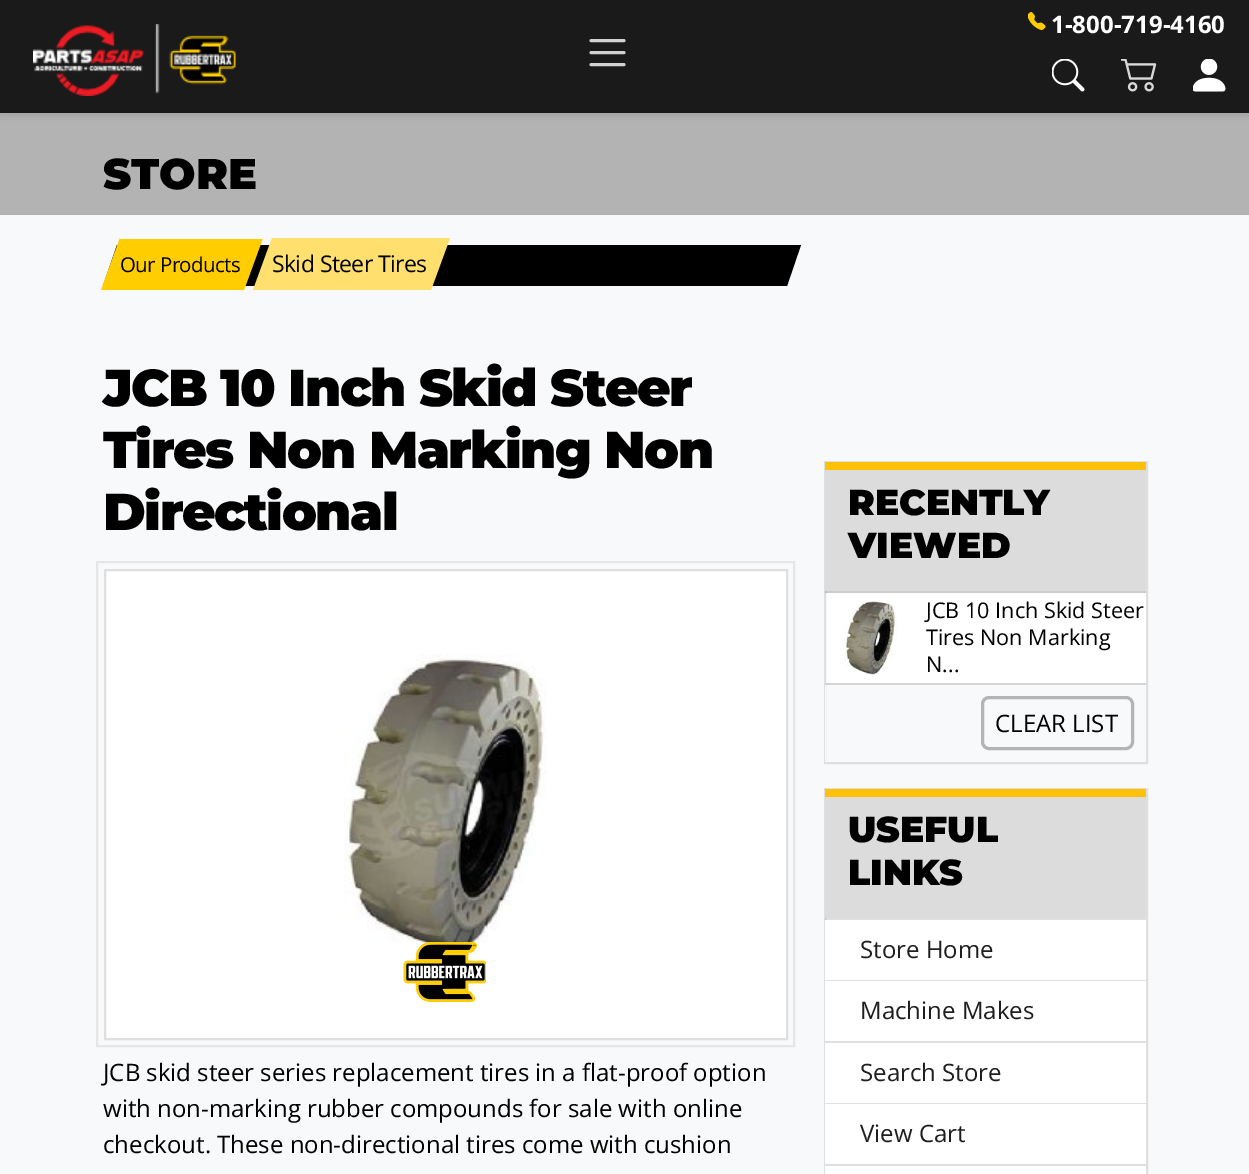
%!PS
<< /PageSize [1249 1174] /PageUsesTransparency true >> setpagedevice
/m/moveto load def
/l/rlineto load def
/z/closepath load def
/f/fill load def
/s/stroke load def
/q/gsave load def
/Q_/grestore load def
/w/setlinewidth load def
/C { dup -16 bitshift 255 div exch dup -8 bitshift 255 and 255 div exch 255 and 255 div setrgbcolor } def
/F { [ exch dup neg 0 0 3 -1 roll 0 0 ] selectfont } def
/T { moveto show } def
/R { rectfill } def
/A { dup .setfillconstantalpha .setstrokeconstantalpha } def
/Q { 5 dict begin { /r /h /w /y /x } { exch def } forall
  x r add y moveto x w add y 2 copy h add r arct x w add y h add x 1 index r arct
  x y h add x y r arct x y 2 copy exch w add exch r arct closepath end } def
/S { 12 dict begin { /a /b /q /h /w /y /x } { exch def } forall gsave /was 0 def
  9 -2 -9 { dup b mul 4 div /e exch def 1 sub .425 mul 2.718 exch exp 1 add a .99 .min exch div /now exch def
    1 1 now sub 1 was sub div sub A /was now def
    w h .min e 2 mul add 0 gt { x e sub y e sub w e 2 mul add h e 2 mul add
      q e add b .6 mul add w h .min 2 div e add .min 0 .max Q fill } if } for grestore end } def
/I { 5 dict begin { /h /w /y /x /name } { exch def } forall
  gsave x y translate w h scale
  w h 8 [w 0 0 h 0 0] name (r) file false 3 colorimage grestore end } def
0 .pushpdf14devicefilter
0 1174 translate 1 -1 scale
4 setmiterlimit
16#F8F9FA C
0 0 1249 1174 R
16#B3B3B3 C
0 113 1249 102 R
16#000000 C
0 3 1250 113 0 3 .07 S
16#1A1A1A C
0 0 1249 113 R
(1.rgb) 33 24 203 72 I
16#D1D1D1 C
3 w
1 setlinecap
591 40.5 m 33 0 l 591 52.5 m 33 0 l 591 64.5 m 33 0 l s
(2.rgb) 1028 12 18 18 I
/OpenSans-Bold 24 F
16#FFFFFF C
(1-800-719-4160) 1051 33 T
(3.rgb) 1052 59 33 33 I
(4.rgb) 1121 59 36 33 I
(5.rgb) 1193 59 33 33 I
/Montserrat-Thin 43 F
16#000000 C
(STORE) 103 189 T
117 245 m 684 0 l -14 41 l -684 0 l z f
16#FFCD00 C
120 238 m 143 0 l -19 52 l -143 0 l z f
/OpenSans-Regular 20.5 F
16#000000 C
120 272 m -.6 0 (Our Products) ashow
16#FFFFFF C
120 238 143 1 R
16#FFE06F C
272 238 m 178 0 l -19 52 l -178 0 l z f
/OpenSans-Regular 23 F
16#000000 C
272 272 m -.6 0 (Skid Steer Tires) ashow
/Montserrat-Thin 51.75 F
103 406 m -1.55 0 (JCB 10 Inch Skid Steer) ashow
103 468 m -1.55 0 (Tires Non Marking Non) ashow
103 530 m -1.55 0 (Directional) ashow
16#FFFFFF C
105 570 m 682 0 l 0 469 l -682 0 l z q f Q_
16#DFDFDF C
2 w
0 setlinecap
s
(6.rgb) 344 654 203 300 I
16#E6E6E6 C
97 562 697 484 rectstroke
(7.rgb) 403 942 83 60 I
/OpenSans-Regular 24 F
16#000000 C
(JCB skid steer series replacement tires in a flat-proof option) 103 1081 T
(with non-marking rubber compounds for sale with online) 103 1117 T
(checkout. These non-directional tires come with cushion) 103 1153 T
16#FFFFFF C
826 591 320 92 R
16#DFDFDF C
825 462 322 301 rectstroke
16#DCDCDC C
825 470 321 121 R
16#FFC107 C
825 462 321 8 R
/Montserrat-Thin 36 F
16#000000 C
(RECENTLY) 848 515 T
(VIEWED) 848 558 T
0.2 A
825 591 321 2 R
1 A
(8.rgb) 844 600 54 75 I
/OpenSans-Regular 21.6 F
(JCB 10 Inch Skid Steer) 926 618 T
(Tires Non Marking) 926 645 T
(N...) 926 672 T
16#FAFAFA C
825 685 1 77 R
16#D5D5D5 C
825 683 321 2 R
16#B4B4B4 C
3 w
982.5 697.5 150 51 6.5 Q s
/OpenSans-Regular 24 F
16#000000 C
(CLEAR LIST) 995 732 T
16#FFFFFF C
826 918 320 2 R
16#DFDFDF C
2 w
825 789 322 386 rectstroke
16#DCDCDC C
825 797 321 121 R
16#FFC107 C
825 789 321 8 R
/Montserrat-Thin 36 F
16#000000 C
(USEFUL) 848 842 T
(LINKS) 848 885 T
0.12 A
825 918 321 2 R
1 A
16#FFFFFF C
825 920 321 121 R
0.12 A
16#000000 C
825 980 321 1 R
/OpenSans-Regular 24 F
1 A
16#1E1E1E C
(Store Home) 860 958 T
16#DFDFDF C
825 1041 321 2 R
16#1E1E1E C
(Machine Makes) 860 1019 T
16#FFFFFF C
825 1043 321 121 R
0.12 A
16#000000 C
825 1103 321 1 R
1 A
16#1E1E1E C
(Search Store) 860 1081 T
16#DFDFDF C
825 1164 321 2 R
16#1E1E1E C
(View Cart) 860 1142 T
16#FFFFFF C
825 1166 321 8 R
.poppdf14devicefilter showpage
